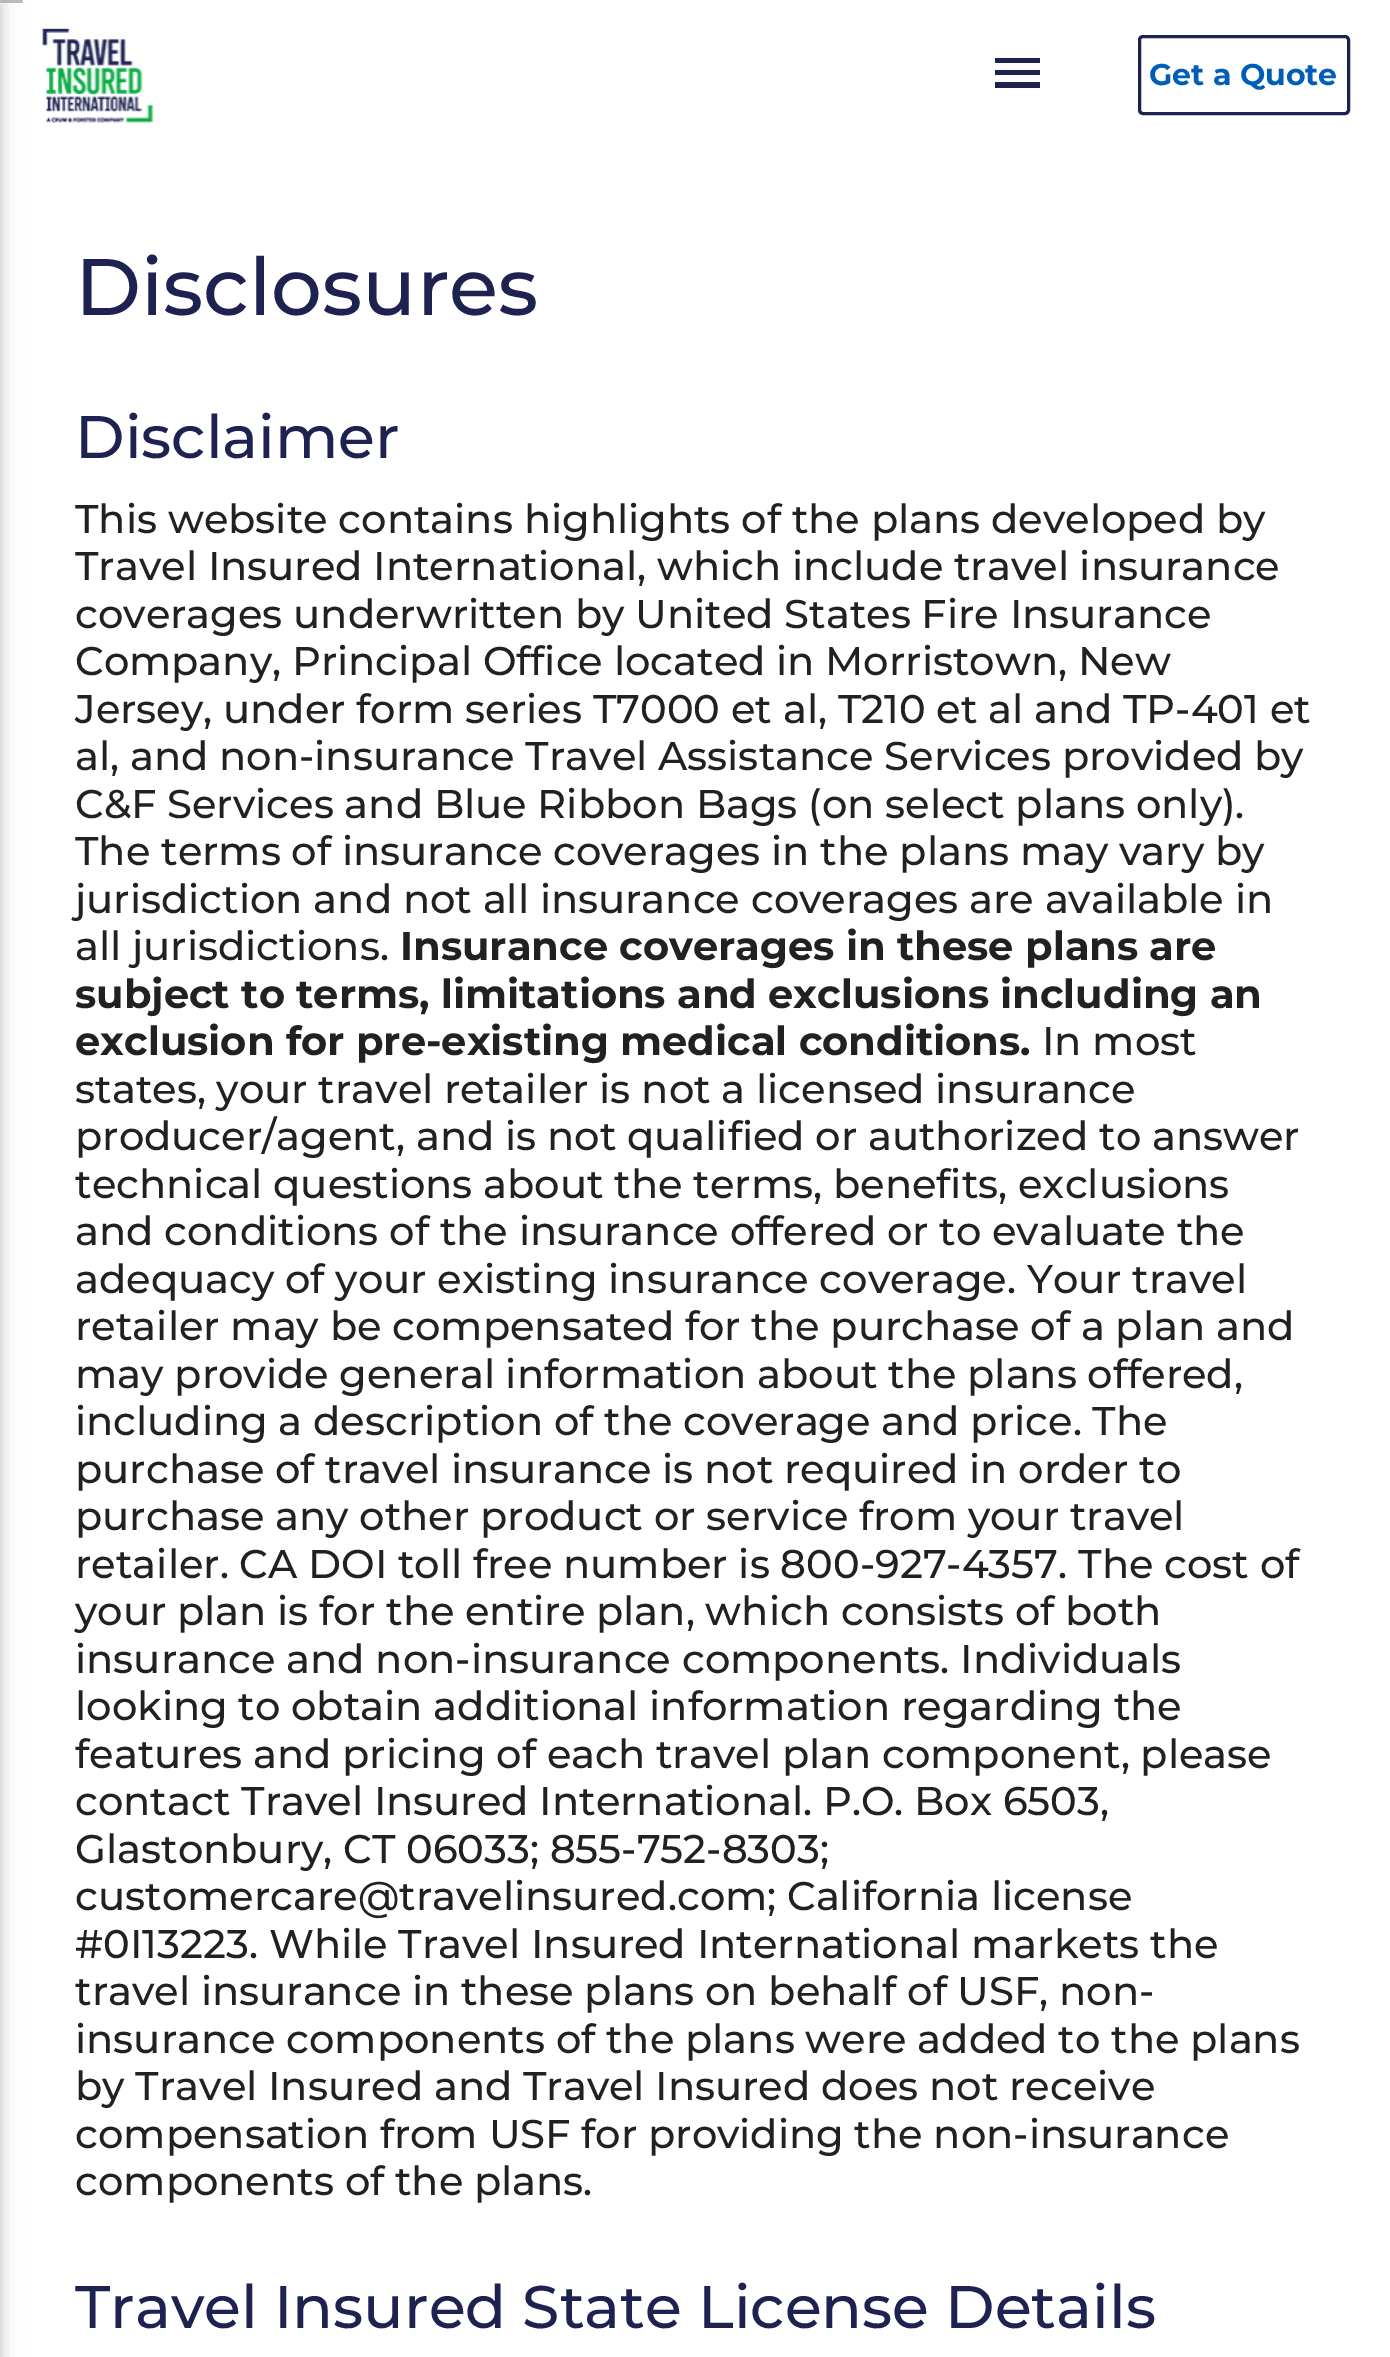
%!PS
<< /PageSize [1390 2357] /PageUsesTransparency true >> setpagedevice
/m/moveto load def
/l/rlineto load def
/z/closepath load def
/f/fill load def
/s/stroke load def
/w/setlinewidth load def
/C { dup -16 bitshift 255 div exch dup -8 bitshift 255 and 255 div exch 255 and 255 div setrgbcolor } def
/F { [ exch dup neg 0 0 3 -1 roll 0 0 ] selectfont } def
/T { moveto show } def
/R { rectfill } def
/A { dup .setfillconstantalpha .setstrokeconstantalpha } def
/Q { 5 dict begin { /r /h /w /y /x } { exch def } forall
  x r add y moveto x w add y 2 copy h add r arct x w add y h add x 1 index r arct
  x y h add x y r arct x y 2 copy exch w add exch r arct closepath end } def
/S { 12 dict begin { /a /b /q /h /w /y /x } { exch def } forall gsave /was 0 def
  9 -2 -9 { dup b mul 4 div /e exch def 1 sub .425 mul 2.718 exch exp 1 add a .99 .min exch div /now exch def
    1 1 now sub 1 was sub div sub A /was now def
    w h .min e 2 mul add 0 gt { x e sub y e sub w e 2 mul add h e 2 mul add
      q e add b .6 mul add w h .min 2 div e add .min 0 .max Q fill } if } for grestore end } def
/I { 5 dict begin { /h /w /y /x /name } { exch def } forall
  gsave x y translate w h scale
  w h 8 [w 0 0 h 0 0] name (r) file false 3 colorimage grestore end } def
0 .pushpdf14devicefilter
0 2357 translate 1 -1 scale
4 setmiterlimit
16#FFFFFF C
0 0 1390 2357 R
16#000000 C
-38 5 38 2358 0 12.5 .12 S
-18 5 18 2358 0 6 .16 S
0.7 A
16#9E9E9E C
0 0 23 3 1.5 Q f
1 A
(1.rgb) 42 28 112 95 I
16#1E2250 C
995 58 m 45 0 l 0 5 l -45 0 l z 995 75 m 0 -5 l 45 0 l 0 5 l z 995 88 m 0 -6 l 45 0 l 0 6 l z f
3 w
1139.5 36.5 209 77 3.5 Q s
/Montserrat-Bold 30 F
16#005EB8 C
(Get a Quote) 1149 85 T
/Montserrat-Medium 80 F
16#1E2250 C
(Disclosures) 75 315 T
/Montserrat-Medium 60 F
(Disclaimer) 75 458 T
/Montserrat-Medium 40 F
16#212121 C
(This website contains highlights of the plans developed by) 75 533 T
(Travel Insured International, which include travel insurance) 75 580 T
(coverages underwritten by United States Fire Insurance) 75 628 T
(Company, Principal Office located in Morristown, New) 75 675 T
(Jersey, under form series T7000 et al, T210 et al and TP-401 et) 75 723 T
(al, and non-insurance Travel Assistance Services provided by) 75 770 T
(C&F Services and Blue Ribbon Bags \(on select plans only\).) 75 818 T
(The terms of insurance coverages in the plans may vary by) 75 865 T
(jurisdiction and not all insurance coverages are available in) 75 913 T
(all jurisdictions.) 75 960 T
/Montserrat-Bold 40 F
(Insurance coverages in these plans are) 400 960 T
(subject to terms, limitations and exclusions including an) 75 1008 T
(exclusion for pre-existing medical conditions.) 75 1055 T
/Montserrat-Medium 40 F
(In most) 1042 1055 T
(states, your travel retailer is not a licensed insurance) 75 1103 T
(producer/agent, and is not qualified or authorized to answer) 75 1150 T
(technical questions about the terms, benefits, exclusions) 75 1198 T
(and conditions of the insurance offered or to evaluate the) 75 1245 T
(adequacy of your existing insurance coverage. Your travel) 75 1293 T
(retailer may be compensated for the purchase of a plan and) 75 1340 T
(may provide general information about the plans offered,) 75 1388 T
(including a description of the coverage and price. The) 75 1435 T
(purchase of travel insurance is not required in order to) 75 1483 T
(purchase any other product or service from your travel) 75 1530 T
(retailer. CA DOI toll free number is 800-927-4357. The cost of) 75 1578 T
(your plan is for the entire plan, which consists of both) 75 1625 T
(insurance and non-insurance components. Individuals) 75 1673 T
(looking to obtain additional information regarding the) 75 1720 T
(features and pricing of each travel plan component, please) 75 1768 T
(contact Travel Insured International. P.O. Box 6503,) 75 1815 T
(Glastonbury, CT 06033; 855-752-8303;) 75 1863 T
(customercare@travelinsured.com; California license) 75 1910 T
(#0I13223. While Travel Insured International markets the) 75 1958 T
(travel insurance in these plans on behalf of USF, non-) 75 2005 T
(insurance components of the plans were added to the plans) 75 2053 T
(by Travel Insured and Travel Insured does not receive) 75 2100 T
(compensation from USF for providing the non-insurance) 75 2148 T
(components of the plans.) 75 2195 T
/Montserrat-Medium 60 F
16#1E2250 C
(Travel Insured State License Details) 75 2328 T
.poppdf14devicefilter showpage
